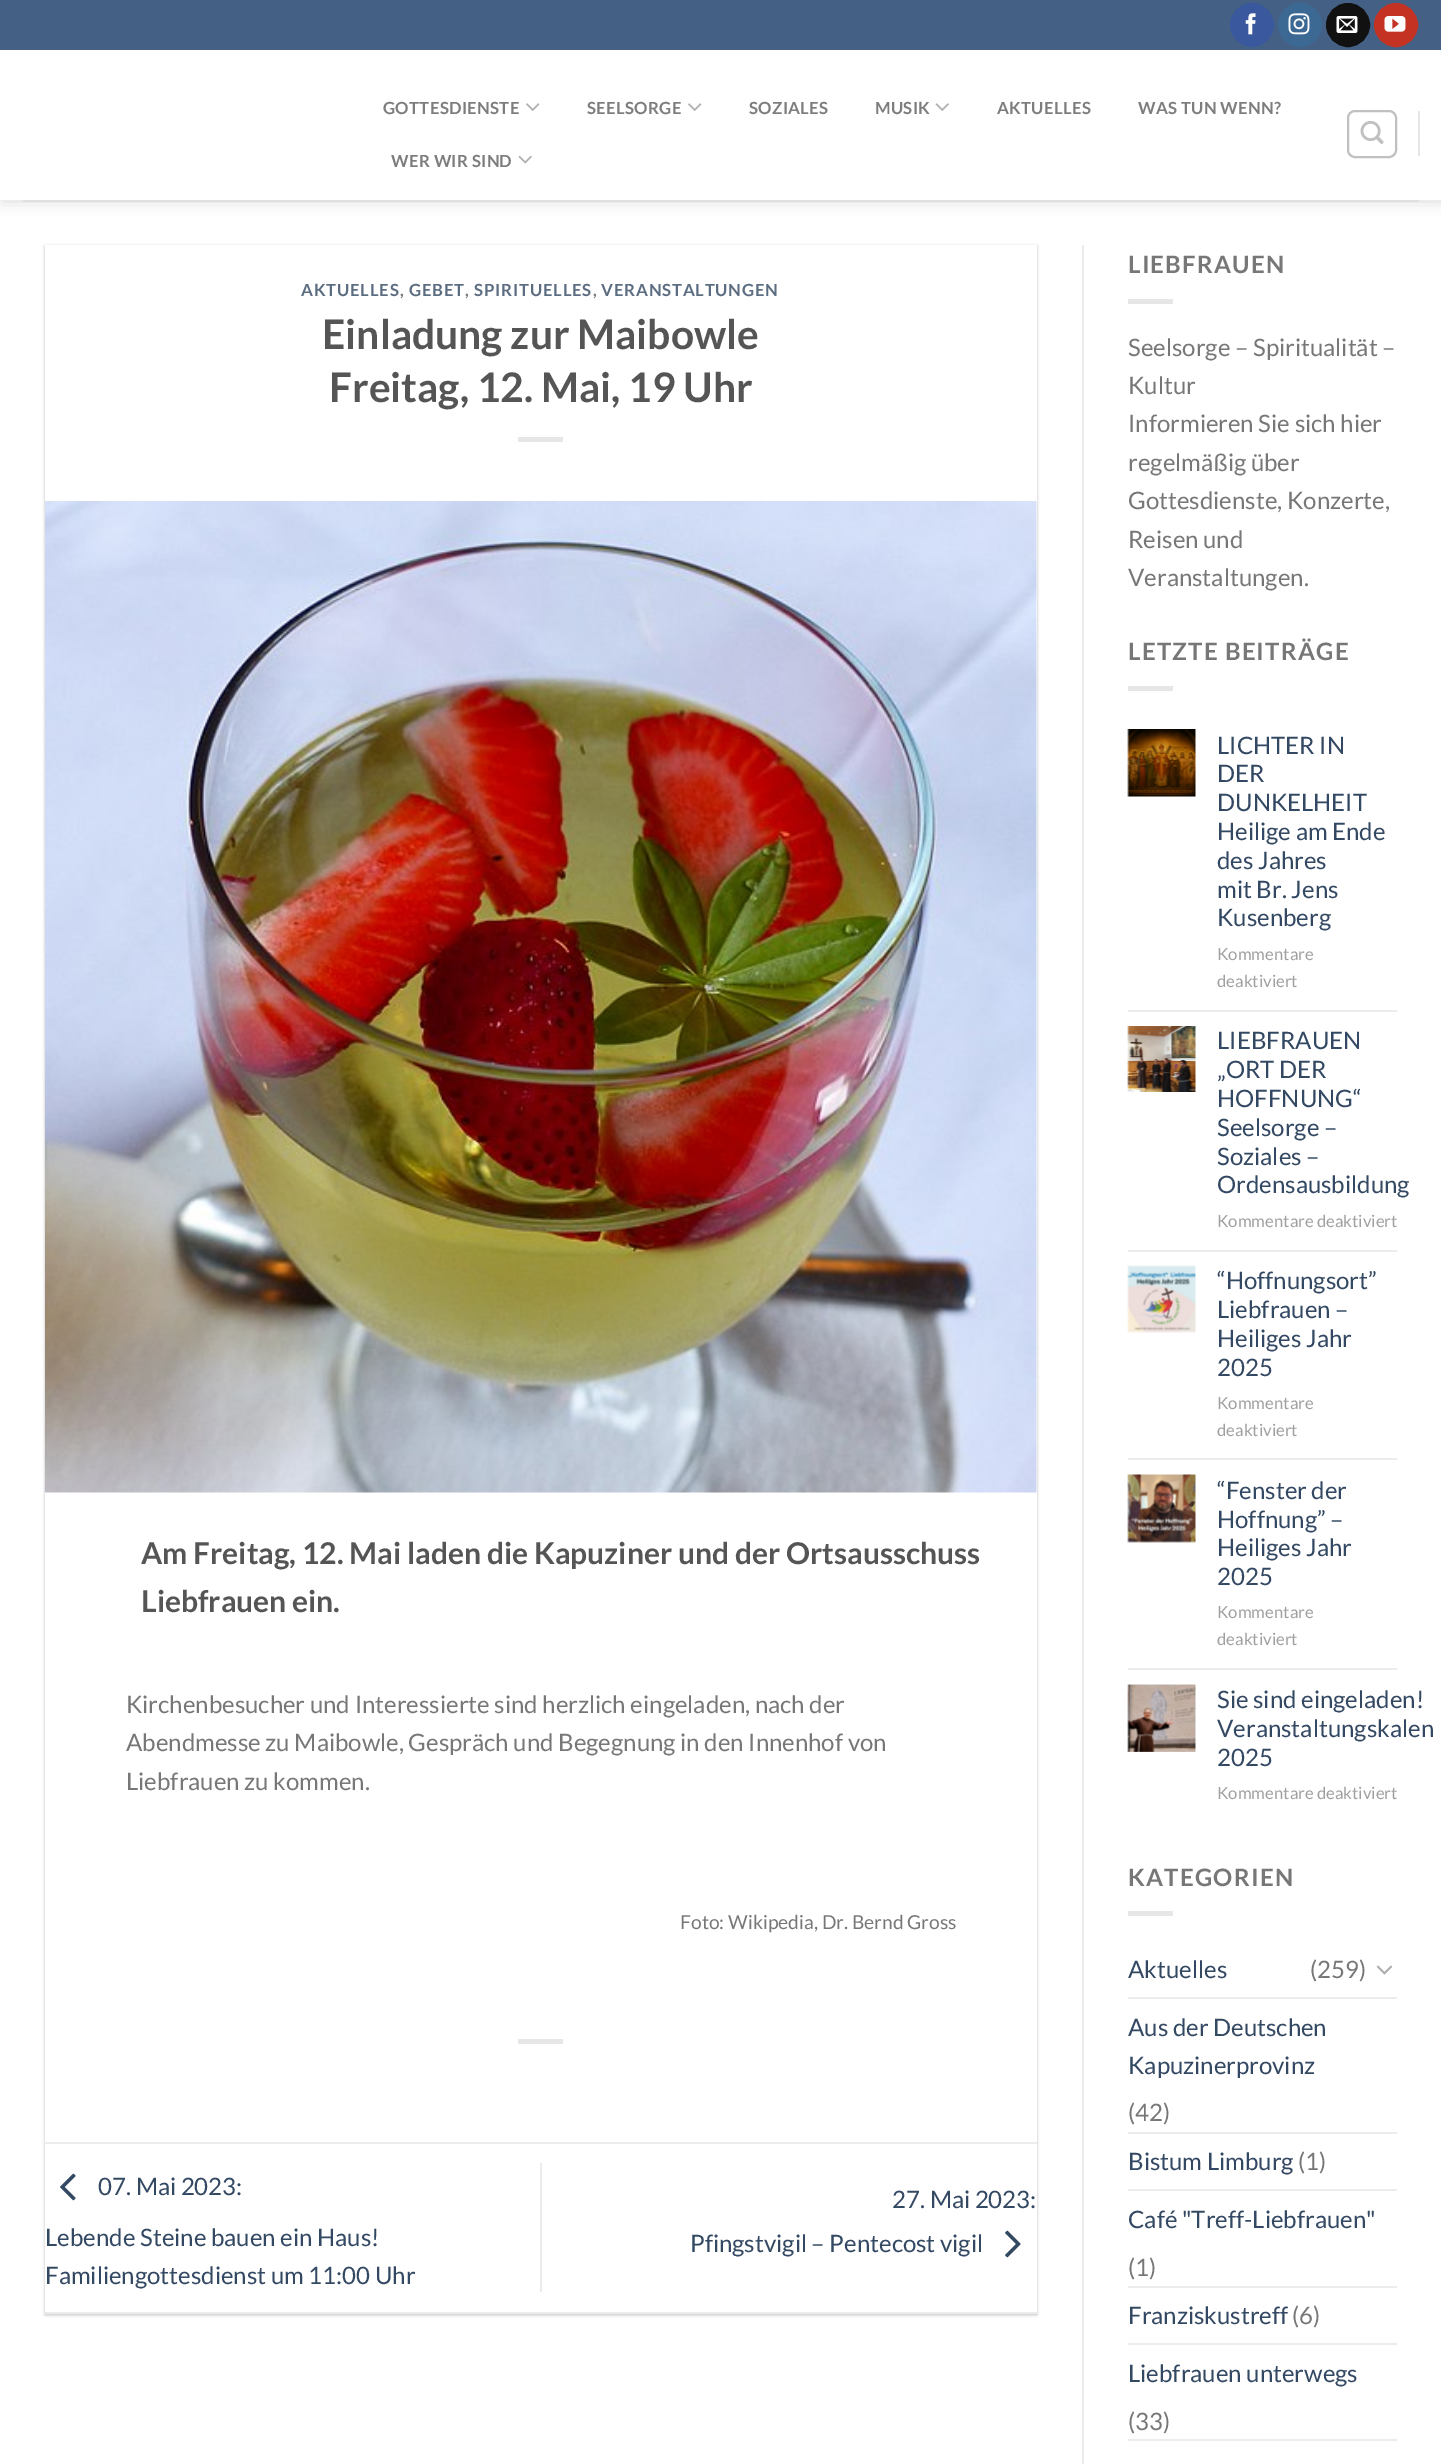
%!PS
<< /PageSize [1441 2464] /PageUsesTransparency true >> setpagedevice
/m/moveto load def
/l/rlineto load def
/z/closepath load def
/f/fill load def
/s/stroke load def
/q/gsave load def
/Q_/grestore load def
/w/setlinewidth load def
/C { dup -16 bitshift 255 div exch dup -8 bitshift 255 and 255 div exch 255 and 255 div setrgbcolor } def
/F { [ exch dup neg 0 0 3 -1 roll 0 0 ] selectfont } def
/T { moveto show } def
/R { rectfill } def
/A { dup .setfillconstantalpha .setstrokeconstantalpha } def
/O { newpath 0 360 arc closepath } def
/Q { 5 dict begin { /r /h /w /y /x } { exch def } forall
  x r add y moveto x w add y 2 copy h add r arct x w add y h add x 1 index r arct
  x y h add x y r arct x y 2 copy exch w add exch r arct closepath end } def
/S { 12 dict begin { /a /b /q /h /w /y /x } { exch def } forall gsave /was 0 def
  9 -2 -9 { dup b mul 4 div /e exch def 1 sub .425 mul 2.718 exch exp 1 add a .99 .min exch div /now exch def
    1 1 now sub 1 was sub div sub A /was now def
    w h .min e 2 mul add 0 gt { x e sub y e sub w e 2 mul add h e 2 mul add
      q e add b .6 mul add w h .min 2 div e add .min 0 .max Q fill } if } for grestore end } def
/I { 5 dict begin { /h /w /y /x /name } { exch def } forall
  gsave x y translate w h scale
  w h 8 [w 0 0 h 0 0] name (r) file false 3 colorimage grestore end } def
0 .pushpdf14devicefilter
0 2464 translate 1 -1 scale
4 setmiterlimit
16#FFFFFF C
0 0 1441 2464 R
q
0 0 m 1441 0 l 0 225 l -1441 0 l z 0 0 m 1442 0 l 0 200 l -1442 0 l z eoclip newpath
16#000000 C
2 2 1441 199 0 7.5 .15 S
Q_
16#446084 C
0 0 1441 50 R
16#3A589D C
1252 25 21 O q f Q_
2 w
s
(1.rgb) 1245 13 11 22 I
16#3B6994 C
1300 25 21 O q f Q_
s
(2.rgb) 1288 13 22 22 I
16#111111 C
1348 25 21 O q f Q_
s
(3.rgb) 1336 16 22 17 I
16#C33223 C
1396 25 21 O q f Q_
s
(4.rgb) 1384 16 22 16 I
/Lato-Bold 16.75 F
16#7D7D7D C
383 114 m .3 0 (GOTTESDIENSTE) ashow
(5.rgb) 526 103 14 8 I
587 114 m .3 0 (SEELSORGE) ashow
(5.rgb) 688 103 14 8 I
749 114 m .3 0 (SOZIALES) ashow
875 114 m .3 0 (MUSIK) ashow
(6.rgb) 935 103 14 8 I
997 114 m .3 0 (AKTUELLES) ashow
1138 114 m .3 0 (WAS TUN WENN?) ashow
391 167 m .3 0 (WER WIR SIND) ashow
(7.rgb) 518 155 14 9 I
16#C0C0C0 C
1348 111 48 46 7 Q s
(8.rgb) 1360 120 24 24 I
16#E6E6E6 C
1418 111 2 45 R
16#E0E0E0 C
23 200 1396 2 R
0.9 A
16#FFFFFF C
0 199 1441 1 R
1 A
16#000000 C
45 246 992 2069 0 1.5 .24 S
16#FFFFFF C
45 245 992 2067 R
16#5C6D81 C
301 296 m .8 0 (AKTUELLES) ashow
16#777777 C
400 296 m .8 0 (,) ashow
16#5C6D81 C
409 296 m .8 0 (GEBET) ashow
16#777777 C
465 296 m .8 0 (,) ashow
16#5C6D81 C
474 296 m .8 0 (SPIRITUELLES) ashow
16#777777 C
593 296 m .8 0 (,) ashow
16#5C6D81 C
601 296 m .8 0 (VERANSTALTUNGEN) ashow
/Lato-Bold 40.75 F
16#555555 C
(Einladung zur Maibowle) 322 349 T
(Freitag, 12. Mai, 19 Uhr) 329 402 T
16#E6E6E6 C
518 437 45 5 R
(9.rgb) 45 501 992 992 I
/Lato-Bold 30 F
16#555555 C
(Am Freitag, 12. Mai laden die Kapuziner und der Ortsausschuss) 141 1564 T
(Liebfrauen ein.) 141 1612 T
/Lato-Regular 24 F
16#777777 C
(Kirchenbesucher und Interessierte sind herzlich eingeladen, nach der) 126 1713 T
(Abendmesse zu Maibowle, Gespräch und Begegnung in den Innenhof von) 126 1751 T
(Liebfrauen zu kommen.) 126 1790 T
/Lato-Regular 19.25 F
(Foto: Wikipedia, Dr. Bernd Gross) 680 1929 T
16#E6E6E6 C
518 2039 45 5 R
16#ECECEC C
45 2142 992 2 R
45 2312 992 2 R
(10.rgb) 60 2173 16 28 I
/Lato-Regular 24 F
16#334862 C
(07. Mai 2023:) 98 2195 T
(Lebende Steine bauen ein Haus!) 45 2246 T
(Familiengottesdienst um 11:00 Uhr) 45 2284 T
16#ECECEC C
540 2163 2 129 R
16#334862 C
(27. Mai 2023:) 892 2208 T
(Pfingstvigil – Pentecost vigil) 690 2252 T
(11.rgb) 1005 2230 16 28 I
16#ECECEC C
1082 245 2 2219 R
/Lato-Bold 24 F
16#777777 C
1128 273 m 1.25 0 (LIEBFRAUEN) ashow
16#E6E6E6 C
1128 299 45 5 R
/Lato-Regular 24 F
16#777777 C
(Seelsorge – Spiritualität –) 1128 356 T
(Kultur) 1128 394 T
(Informieren Sie sich hier) 1128 432 T
(regelmäßig über) 1128 471 T
(Gottesdienste, Konzerte,) 1128 509 T
(Reisen und) 1128 548 T
(Veranstaltungen.) 1128 586 T
/Lato-Bold 24 F
1128 660 m 1.25 0 (LETZTE BEITRÄGE) ashow
16#E6E6E6 C
1128 686 45 5 R
(12.rgb) 1127 729 69 68 I
/Lato-Regular 24 F
16#334862 C
(LICHTER IN) 1217 754 T
(DER) 1217 782 T
(DUNKELHEIT) 1217 811 T
(Heilige am Ende) 1217 840 T
(des Jahres) 1217 869 T
(mit Br. Jens) 1217 898 T
(Kusenberg) 1217 926 T
/Lato-Regular 16.75 F
16#A0A0A0 C
(Kommentare) 1217 960 T
(deaktiviert) 1217 987 T
16#ECECEC C
1128 1010 269 2 R
(13.rgb) 1127 1026 69 66 I
/Lato-Regular 24 F
16#334862 C
(LIEBFRAUEN) 1217 1049 T
(„ORT DER) 1217 1078 T
(HOFFNUNG“) 1217 1107 T
(Seelsorge –) 1217 1136 T
(Soziales –) 1217 1165 T
(Ordensausbildung) 1217 1193 T
/Lato-Regular 16.75 F
16#A0A0A0 C
(Kommentare deaktiviert) 1217 1227 T
16#ECECEC C
1128 1250 269 2 R
(14.rgb) 1127 1265 69 68 I
/Lato-Regular 24 F
16#334862 C
(“Hoffnungsort”) 1217 1289 T
(Liebfrauen –) 1217 1318 T
(Heiliges Jahr) 1217 1347 T
(2025) 1217 1376 T
/Lato-Regular 16.75 F
16#A0A0A0 C
(Kommentare) 1217 1409 T
(deaktiviert) 1217 1436 T
16#ECECEC C
1128 1458 269 2 R
(15.rgb) 1127 1474 69 69 I
/Lato-Regular 24 F
16#334862 C
(“Fenster der) 1217 1499 T
(Hoffnung” –) 1217 1528 T
(Heiliges Jahr) 1217 1556 T
(2025) 1217 1585 T
/Lato-Regular 16.75 F
16#A0A0A0 C
(Kommentare) 1217 1618 T
(deaktiviert) 1217 1645 T
16#ECECEC C
1128 1668 269 2 R
(16.rgb) 1127 1684 69 68 I
/Lato-Regular 24 F
16#334862 C
(Sie sind eingeladen!) 1217 1708 T
(Veranstaltungskalen) 1217 1737 T
(2025) 1217 1766 T
/Lato-Regular 16.75 F
16#A0A0A0 C
(Kommentare deaktiviert) 1217 1799 T
/Lato-Bold 24 F
16#777777 C
1128 1886 m 1.25 0 (KATEGORIEN) ashow
16#E6E6E6 C
1128 1911 45 5 R
/Lato-Regular 24 F
16#334862 C
(Aktuelles) 1128 1978 T
16#777777 C
(\(259\)) 1310 1978 T
(17.rgb) 1376 1965 17 10 I
16#ECECEC C
1128 1997 269 2 R
16#334862 C
(Aus der Deutschen) 1128 2036 T
(Kapuzinerprovinz) 1128 2074 T
16#777777 C
(\(42\)) 1128 2121 T
16#ECECEC C
1128 2132 269 2 R
16#334862 C
(Bistum Limburg) 1128 2170 T
16#777777 C
(\(1\)) 1298 2170 T
16#ECECEC C
1128 2189 269 2 R
16#334862 C
(Café "Treff-Liebfrauen") 1128 2228 T
16#777777 C
(\(1\)) 1128 2276 T
16#ECECEC C
1128 2286 269 2 R
16#334862 C
(Franziskustreff) 1128 2324 T
16#777777 C
(\(6\)) 1292 2324 T
16#ECECEC C
1128 2343 269 2 R
16#334862 C
(Liebfrauen unterwegs) 1128 2382 T
16#777777 C
(\(33\)) 1128 2430 T
16#ECECEC C
1128 2439 269 2 R
.poppdf14devicefilter showpage
